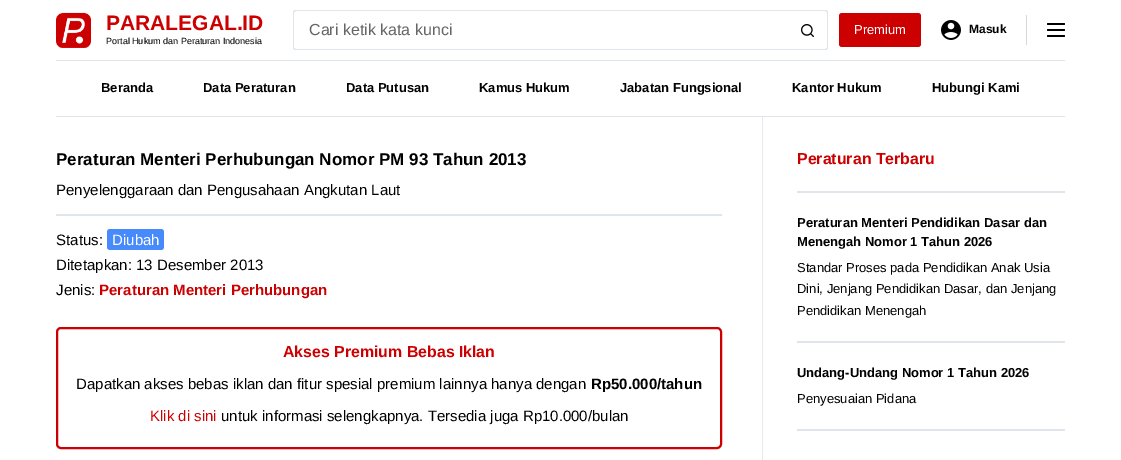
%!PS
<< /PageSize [1121 460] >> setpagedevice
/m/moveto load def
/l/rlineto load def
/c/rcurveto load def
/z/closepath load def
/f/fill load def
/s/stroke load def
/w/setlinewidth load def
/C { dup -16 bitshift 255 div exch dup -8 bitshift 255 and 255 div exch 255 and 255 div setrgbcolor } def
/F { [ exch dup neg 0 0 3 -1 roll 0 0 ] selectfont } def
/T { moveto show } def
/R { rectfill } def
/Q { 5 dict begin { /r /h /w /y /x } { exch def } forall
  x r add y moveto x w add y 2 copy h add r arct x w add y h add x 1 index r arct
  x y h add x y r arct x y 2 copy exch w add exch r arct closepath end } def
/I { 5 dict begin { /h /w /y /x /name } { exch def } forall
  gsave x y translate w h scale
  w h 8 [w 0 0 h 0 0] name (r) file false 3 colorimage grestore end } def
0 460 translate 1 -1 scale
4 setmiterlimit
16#FFFFFF C
0 0 1121 460 R
16#E0E5EB C
56 60 1009 1 R
(1.rgb) 56 12 35 36 I
/LiberationSans-Bold 21 F
16#CC0000 C
(PARALEGAL.ID) 106 30 T
/LiberationSans-Regular 9 F
16#000000 C
(Portal Hukum dan Peraturan Indonesia) 106 44 T
16#E0E5EB C
296 10 m 492 0 l 0 40 l -492 0 l -2 0 -3 -1 -3 -3 c 0 -34 l 0 -2 1 -3 3 -3 c z 296 11 m 492 0 l 0 38 l -492 0 l -1 0 -2 -1 -2 -2 c 0 -34 l 0 -1 1 -2 2 -2 c z eofill
/LiberationSans-Regular 16 F
16#666666 C
(Cari ketik kata kunci) 309 35 T
16#E0E5EB C
788 10 m 37 0 l 2 0 3 1 3 3 c 0 34 l 0 2 -1 3 -3 3 c -37 0 l z 788 11 m 37 0 l 1 0 2 1 2 2 c 0 34 l 0 1 -1 2 -2 2 c -37 0 l z eofill
(2.rgb) 801 24 13 13 I
16#FFFFFF C
1.5 w
1 setlinecap
799.5 28.5 m 1 -4 4.5 -6.5 9 -6 c s
16#CC0000 C
839 13 82 34 3 Q f
/LiberationSans-Regular 13 F
16#FFFFFF C
(Premium) 854 34 T
(3.rgb) 941 20 20 20 I
/LiberationSans-Bold 12 F
16#000000 C
(Masuk) 969 33 T
16#D5D8DC C
1026 15 1 30 R
16#000000 C
1047 23 18 2 1 Q f
1047 29 18 2 1 Q f
1047 35 18 2 1 Q f
16#E0E5EB C
56 116 1009 1 R
/LiberationSans-Bold 13 F
16#000000 C
(Beranda) 101 92 T
(Data Peraturan) 203 92 T
(Data Putusan) 346 92 T
(Kamus Hukum) 479 92 T
(Jabatan Fungsional) 620 92 T
(Kantor Hukum) 792 92 T
(Hubungi Kami) 932 92 T
/LiberationSans-Bold 17 F
(Peraturan Menteri Perhubungan Nomor PM 93 Tahun 2013) 56 165 T
/LiberationSans-Regular 15 F
(Penyelenggaraan dan Pengusahaan Angkutan Laut) 56 195 T
16#E0E5EB C
56 214 666 2 R
16#000000 C
(Status:) 56 245 T
16#478AFB C
107 229 57 21 3 Q f
16#FFFFFF C
(Diubah) 112 245 T
16#000000 C
(Ditetapkan: 13 Desember 2013) 56 270 T
(Jenis:) 56 295 T
/LiberationSans-Bold 15 F
16#CC0000 C
(Peraturan Menteri Perhubungan) 99 295 T
2 w
0 setlinecap
57 328 664 120 4 Q s
/LiberationSans-Bold 15.9 F
(Akses Premium Bebas Iklan) 283 357 T
/LiberationSans-Regular 15 F
16#000000 C
(Dapatkan akses bebas iklan dan fitur spesial premium lainnya hanya dengan) 76 389 T
/LiberationSans-Bold 15 F
(Rp50.000/tahun) 591 389 T
/LiberationSans-Regular 15 F
16#CC0000 C
(Klik di sini) 150 421 T
16#000000 C
(untuk informasi selengkapnya. Tersedia juga Rp10.000/bulan) 221 421 T
16#E6EAEF C
762 117 1 343 R
/LiberationSans-Bold 15.9 F
16#CC0000 C
(Peraturan Terbaru) 797 164 T
16#E0E5EB C
797 191 268 2 R
/LiberationSans-Bold 13 F
16#000000 C
(Peraturan Menteri Pendidikan Dasar dan) 797 227 T
(Menengah Nomor 1 Tahun 2026) 797 246 T
/LiberationSans-Regular 13 F
(Standar Proses pada Pendidikan Anak Usia) 797 272 T
(Dini, Jenjang Pendidikan Dasar, dan Jenjang) 797 293 T
(Pendidikan Menengah) 797 315 T
16#E0E5EB C
797 341 268 2 R
/LiberationSans-Bold 13 F
16#000000 C
(Undang-Undang Nomor 1 Tahun 2026) 797 377 T
/LiberationSans-Regular 13 F
(Penyesuaian Pidana) 797 403 T
16#E0E5EB C
797 429 268 2 R
showpage
